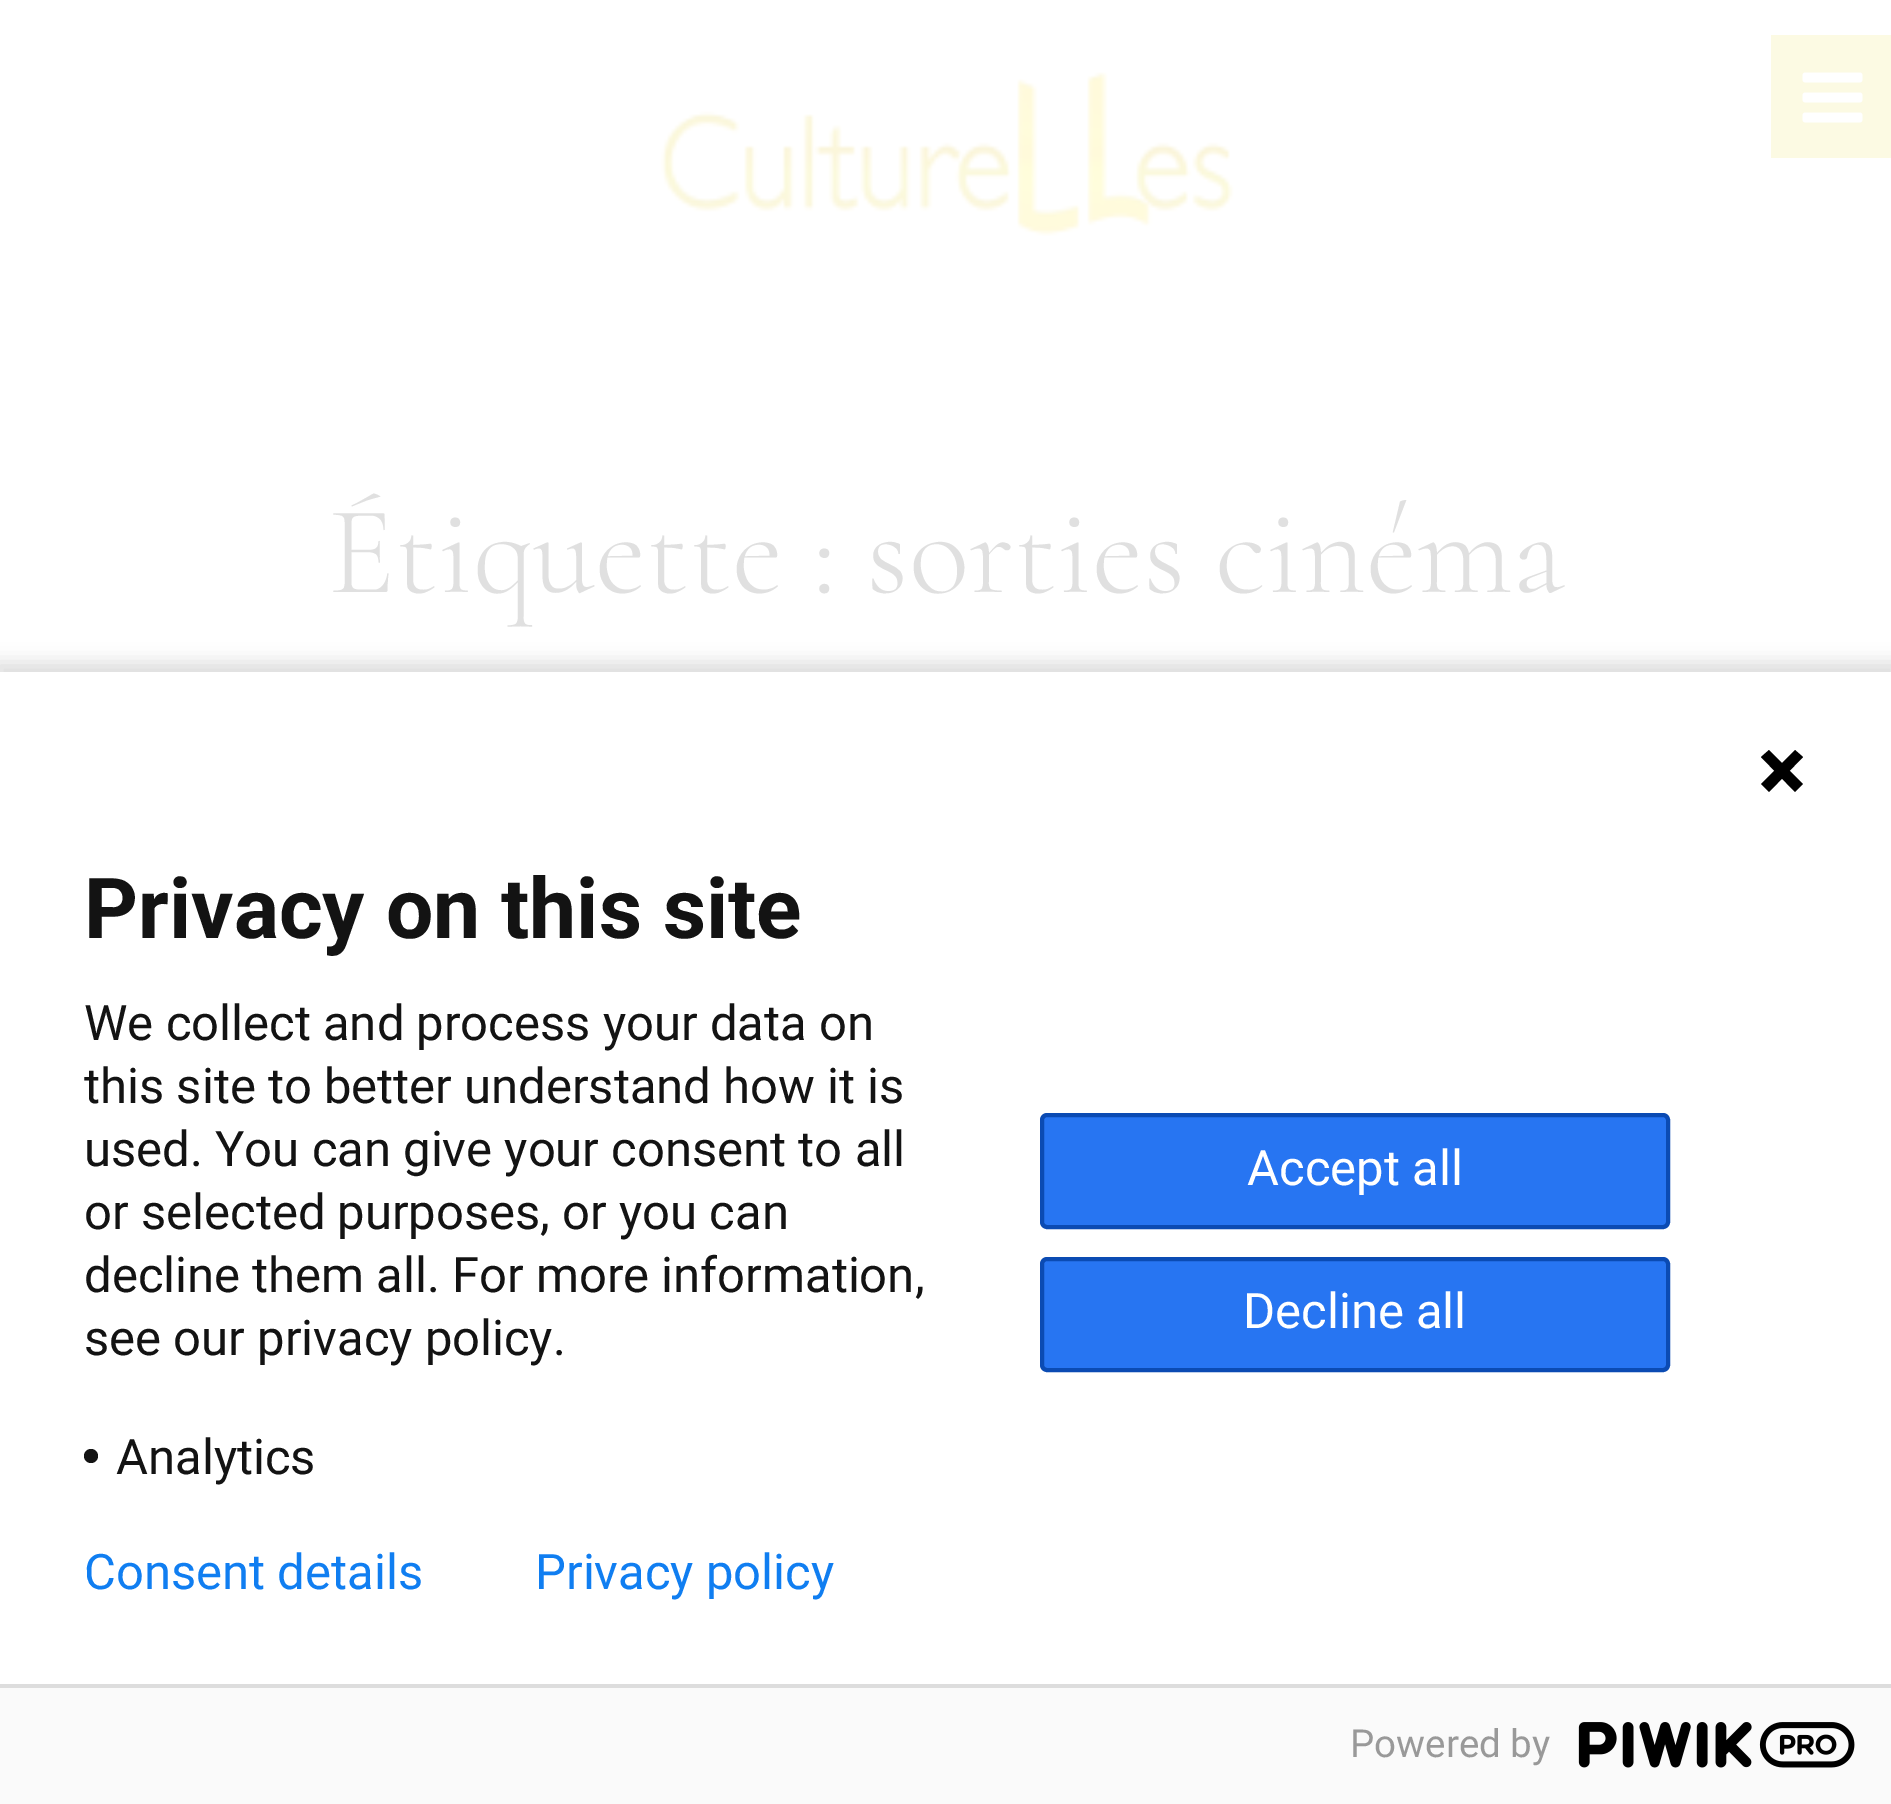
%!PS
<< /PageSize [1891 1804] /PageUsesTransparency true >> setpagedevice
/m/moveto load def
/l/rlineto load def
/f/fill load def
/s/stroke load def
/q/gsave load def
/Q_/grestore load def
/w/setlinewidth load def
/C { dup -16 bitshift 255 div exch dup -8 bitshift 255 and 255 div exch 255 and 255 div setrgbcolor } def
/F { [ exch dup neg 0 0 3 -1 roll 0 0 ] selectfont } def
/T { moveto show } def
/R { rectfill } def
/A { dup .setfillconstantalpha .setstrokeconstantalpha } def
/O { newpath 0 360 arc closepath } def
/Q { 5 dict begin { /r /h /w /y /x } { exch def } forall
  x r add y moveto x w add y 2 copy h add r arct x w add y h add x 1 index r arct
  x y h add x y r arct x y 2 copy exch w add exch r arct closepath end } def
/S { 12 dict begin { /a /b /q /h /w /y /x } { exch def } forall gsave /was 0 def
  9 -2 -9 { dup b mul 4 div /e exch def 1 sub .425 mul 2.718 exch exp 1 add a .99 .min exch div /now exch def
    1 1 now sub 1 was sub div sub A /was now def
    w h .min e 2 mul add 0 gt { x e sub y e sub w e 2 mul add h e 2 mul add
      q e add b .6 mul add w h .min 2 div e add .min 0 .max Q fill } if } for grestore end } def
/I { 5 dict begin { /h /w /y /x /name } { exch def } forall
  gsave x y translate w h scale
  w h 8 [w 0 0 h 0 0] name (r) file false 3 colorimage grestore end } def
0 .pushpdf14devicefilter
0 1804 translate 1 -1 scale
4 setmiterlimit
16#FFFFFF C
0 0 1891 1804 R
(1.rgb) 660 72 574 164 I
16#FCFAE3 C
1771 35 120 123 R
(2.rgb) 1802 72 61 51 I
/Cormorant-Light 126 F
16#E0E0E0 C
(Étiquette : sorties cinéma) 328 592 T
16#000000 C
-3 662 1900 1141 0 9 .14 S
16#FFFFFF C
0 672 1891 1012 R
16#000000 C
1761 757 m 8 -7 l 34 34 l -8 8 l -34 -35 l f
1795 750 m 8 7 l -34 35 l -8 -8 l 34 -34 l f
/Roboto-Bold 84 F
16#131313 C
(Privacy on this site) 84 938 T
/Roboto-Regular 49 F
(We collect and process your data on) 84 1040 T
(this site to better understand how it is) 84 1103 T
(used. You can give your consent to all) 84 1166 T
(or selected purposes, or you can) 84 1229 T
(decline them all. For more information,) 84 1292 T
(see our privacy policy.) 84 1355 T
91 1456 7 O f
(Analytics) 116 1474 T
16#2775F2 C
1042 1115 626 112 5 Q q f Q_
16#0B4BB3 C
4 w
s
16#FFFFFF C
(Accept all) 1247 1185 T
16#2775F2 C
1042 1259 626 111 5 Q q f Q_
16#0B4BB3 C
s
16#FFFFFF C
(Decline all) 1243 1328 T
16#107EF1 C
(Consent details) 84 1589 T
(Privacy policy) 535 1589 T
16#FAFAFA C
0 1688 1891 116 R
16#DDDDDD C
0 1684 1891 4 R
/Roboto-Regular 38.5 F
16#999999 C
(Powered by) 1350 1757 T
(3.rgb) 1578 1722 277 46 I
.poppdf14devicefilter showpage
